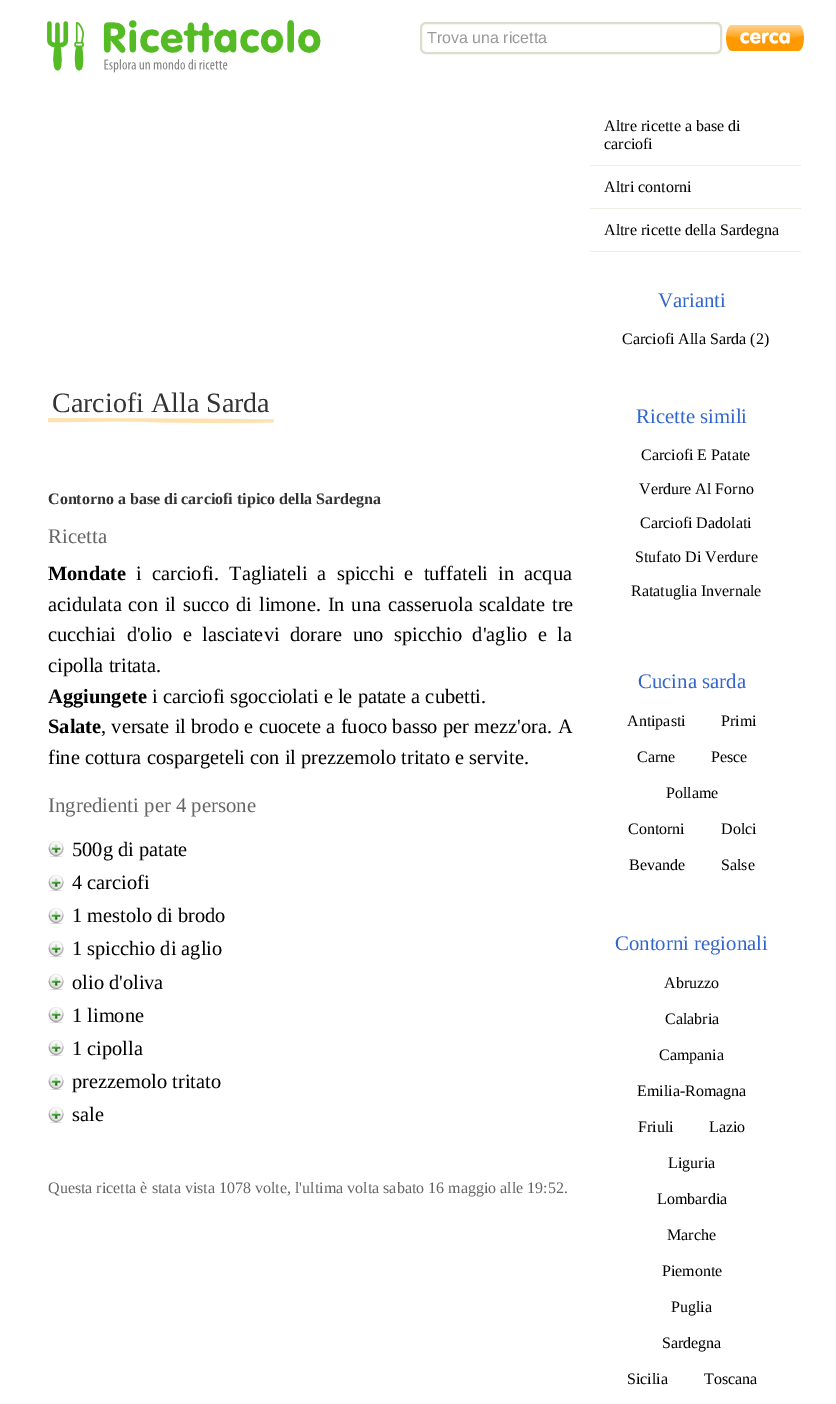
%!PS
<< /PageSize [836 1404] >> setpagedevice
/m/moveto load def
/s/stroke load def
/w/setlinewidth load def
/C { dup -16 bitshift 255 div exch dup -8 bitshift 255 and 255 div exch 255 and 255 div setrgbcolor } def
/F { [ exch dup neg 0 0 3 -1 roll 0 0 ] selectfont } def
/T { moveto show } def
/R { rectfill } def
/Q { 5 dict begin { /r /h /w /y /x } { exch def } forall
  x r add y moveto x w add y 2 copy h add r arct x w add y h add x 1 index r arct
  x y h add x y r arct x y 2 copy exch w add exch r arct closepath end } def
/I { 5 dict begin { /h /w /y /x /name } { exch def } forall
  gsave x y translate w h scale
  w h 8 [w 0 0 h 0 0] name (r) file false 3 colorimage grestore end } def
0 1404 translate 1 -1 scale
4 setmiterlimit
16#FFFFFF C
0 0 836 1404 R
(1.rgb) 47 20 274 53 I
16#DDDDD0 C
2 w
421 23 300 30 5 Q s
/LiberationSans-Regular 16 F
16#999999 C
(Trova una ricetta) 427 43 T
(2.rgb) 726 25 78 26 I
(3.rgb) 48 418 226 5 I
/LiberationSerif-Regular 28 F
16#333333 C
(Carciofi Alla Sarda) 52 412 T
/LiberationSerif-Bold 16 F
(Contorno a base di carciofi tipico della Sardegna) 48 504 T
/LiberationSerif-Regular 20.75 F
16#666666 C
(Ricetta) 48 543 T
/LiberationSerif-Bold 20.4 F
16#000000 C
(Mondate) 48 580 T
/LiberationSerif-Regular 20.4 F
136 580 m 5 0 32 (i carciofi. Tagliateli a spicchi e tuffateli in acqua) widthshow
48 611 m 1.75 0 32 (acidulata con il succo di limone. In una casseruola scaldate tre) widthshow
48 641 m 5.5 0 32 (cucchiai d'olio e lasciatevi dorare uno spicchio d'aglio e la) widthshow
(cipolla tritata.) 48 672 T
/LiberationSerif-Bold 20.4 F
(Aggiungete) 48 703 T
/LiberationSerif-Regular 20.4 F
(i carciofi sgocciolati e le patate a cubetti.) 152 703 T
/LiberationSerif-Bold 20.4 F
(Salate) 48 733 T
/LiberationSerif-Regular 20.4 F
101 733 m .25 0 32 (, versate il brodo e cuocete a fuoco basso per mezz'ora. A) widthshow
(fine cottura cospargeteli con il prezzemolo tritato e servite.) 48 764 T
/LiberationSerif-Regular 20.75 F
16#666666 C
(Ingredienti per 4 persone) 48 812 T
(4.rgb) 48 841 16 16 I
/LiberationSerif-Regular 20.4 F
16#000000 C
(500g di patate) 72 856 T
(4.rgb) 48 875 16 16 I
(4 carciofi) 72 889 T
(4.rgb) 48 908 16 16 I
(1 mestolo di brodo) 72 922 T
(4.rgb) 48 941 16 16 I
(1 spicchio di aglio) 72 955 T
(4.rgb) 48 974 16 16 I
(olio d'oliva) 72 989 T
(4.rgb) 48 1007 16 16 I
(1 limone) 72 1022 T
(4.rgb) 48 1040 16 16 I
(1 cipolla) 72 1055 T
(4.rgb) 48 1074 16 16 I
(prezzemolo tritato) 72 1088 T
(4.rgb) 48 1107 16 16 I
(sale) 72 1121 T
/LiberationSerif-Regular 16 F
16#666666 C
(Questa ricetta è stata vista 1078 volte, l'ultima volta sabato 16 maggio alle 19:52.) 48 1193 T
16#EEEEE6 C
590 165 211 1 R
16#000000 C
(Altre ricette a base di) 604 131 T
(carciofi) 604 149 T
16#EEEEE6 C
590 208 211 1 R
16#000000 C
(Altri contorni) 604 192 T
16#EEEEE6 C
590 251 211 1 R
16#000000 C
(Altre ricette della Sardegna) 604 235 T
/LiberationSerif-Regular 20.75 F
16#3366CC C
(Varianti) 658 307 T
/LiberationSerif-Regular 16 F
16#000000 C
(Carciofi Alla Sarda \(2\)) 622 344 T
/LiberationSerif-Regular 20.75 F
16#3366CC C
(Ricette simili) 636 423 T
/LiberationSerif-Regular 16 F
16#000000 C
(Carciofi E Patate) 641 460 T
(Verdure Al Forno) 639 494 T
(Carciofi Dadolati) 640 528 T
(Stufato Di Verdure) 635 562 T
(Ratatuglia Invernale) 631 596 T
/LiberationSerif-Regular 20.75 F
16#3366CC C
(Cucina sarda) 638 688 T
/LiberationSerif-Regular 16 F
16#000000 C
(Antipasti) 627 726 T
(Primi) 721 726 T
(Carne) 637 762 T
(Pesce) 711 762 T
(Pollame) 666 798 T
(Contorni) 628 834 T
(Dolci) 721 834 T
(Bevande) 629 870 T
(Salse) 721 870 T
/LiberationSerif-Regular 20.75 F
16#3366CC C
(Contorni regionali) 615 950 T
/LiberationSerif-Regular 16 F
16#000000 C
(Abruzzo) 664 988 T
(Calabria) 665 1024 T
(Campania) 659 1060 T
(Emilia-Romagna) 637 1096 T
(Friuli) 638 1132 T
(Lazio) 709 1132 T
(Liguria) 668 1168 T
(Lombardia) 657 1204 T
(Marche) 667 1240 T
(Piemonte) 662 1276 T
(Puglia) 671 1312 T
(Sardegna) 662 1348 T
(Sicilia) 627 1384 T
(Toscana) 704 1384 T
showpage
